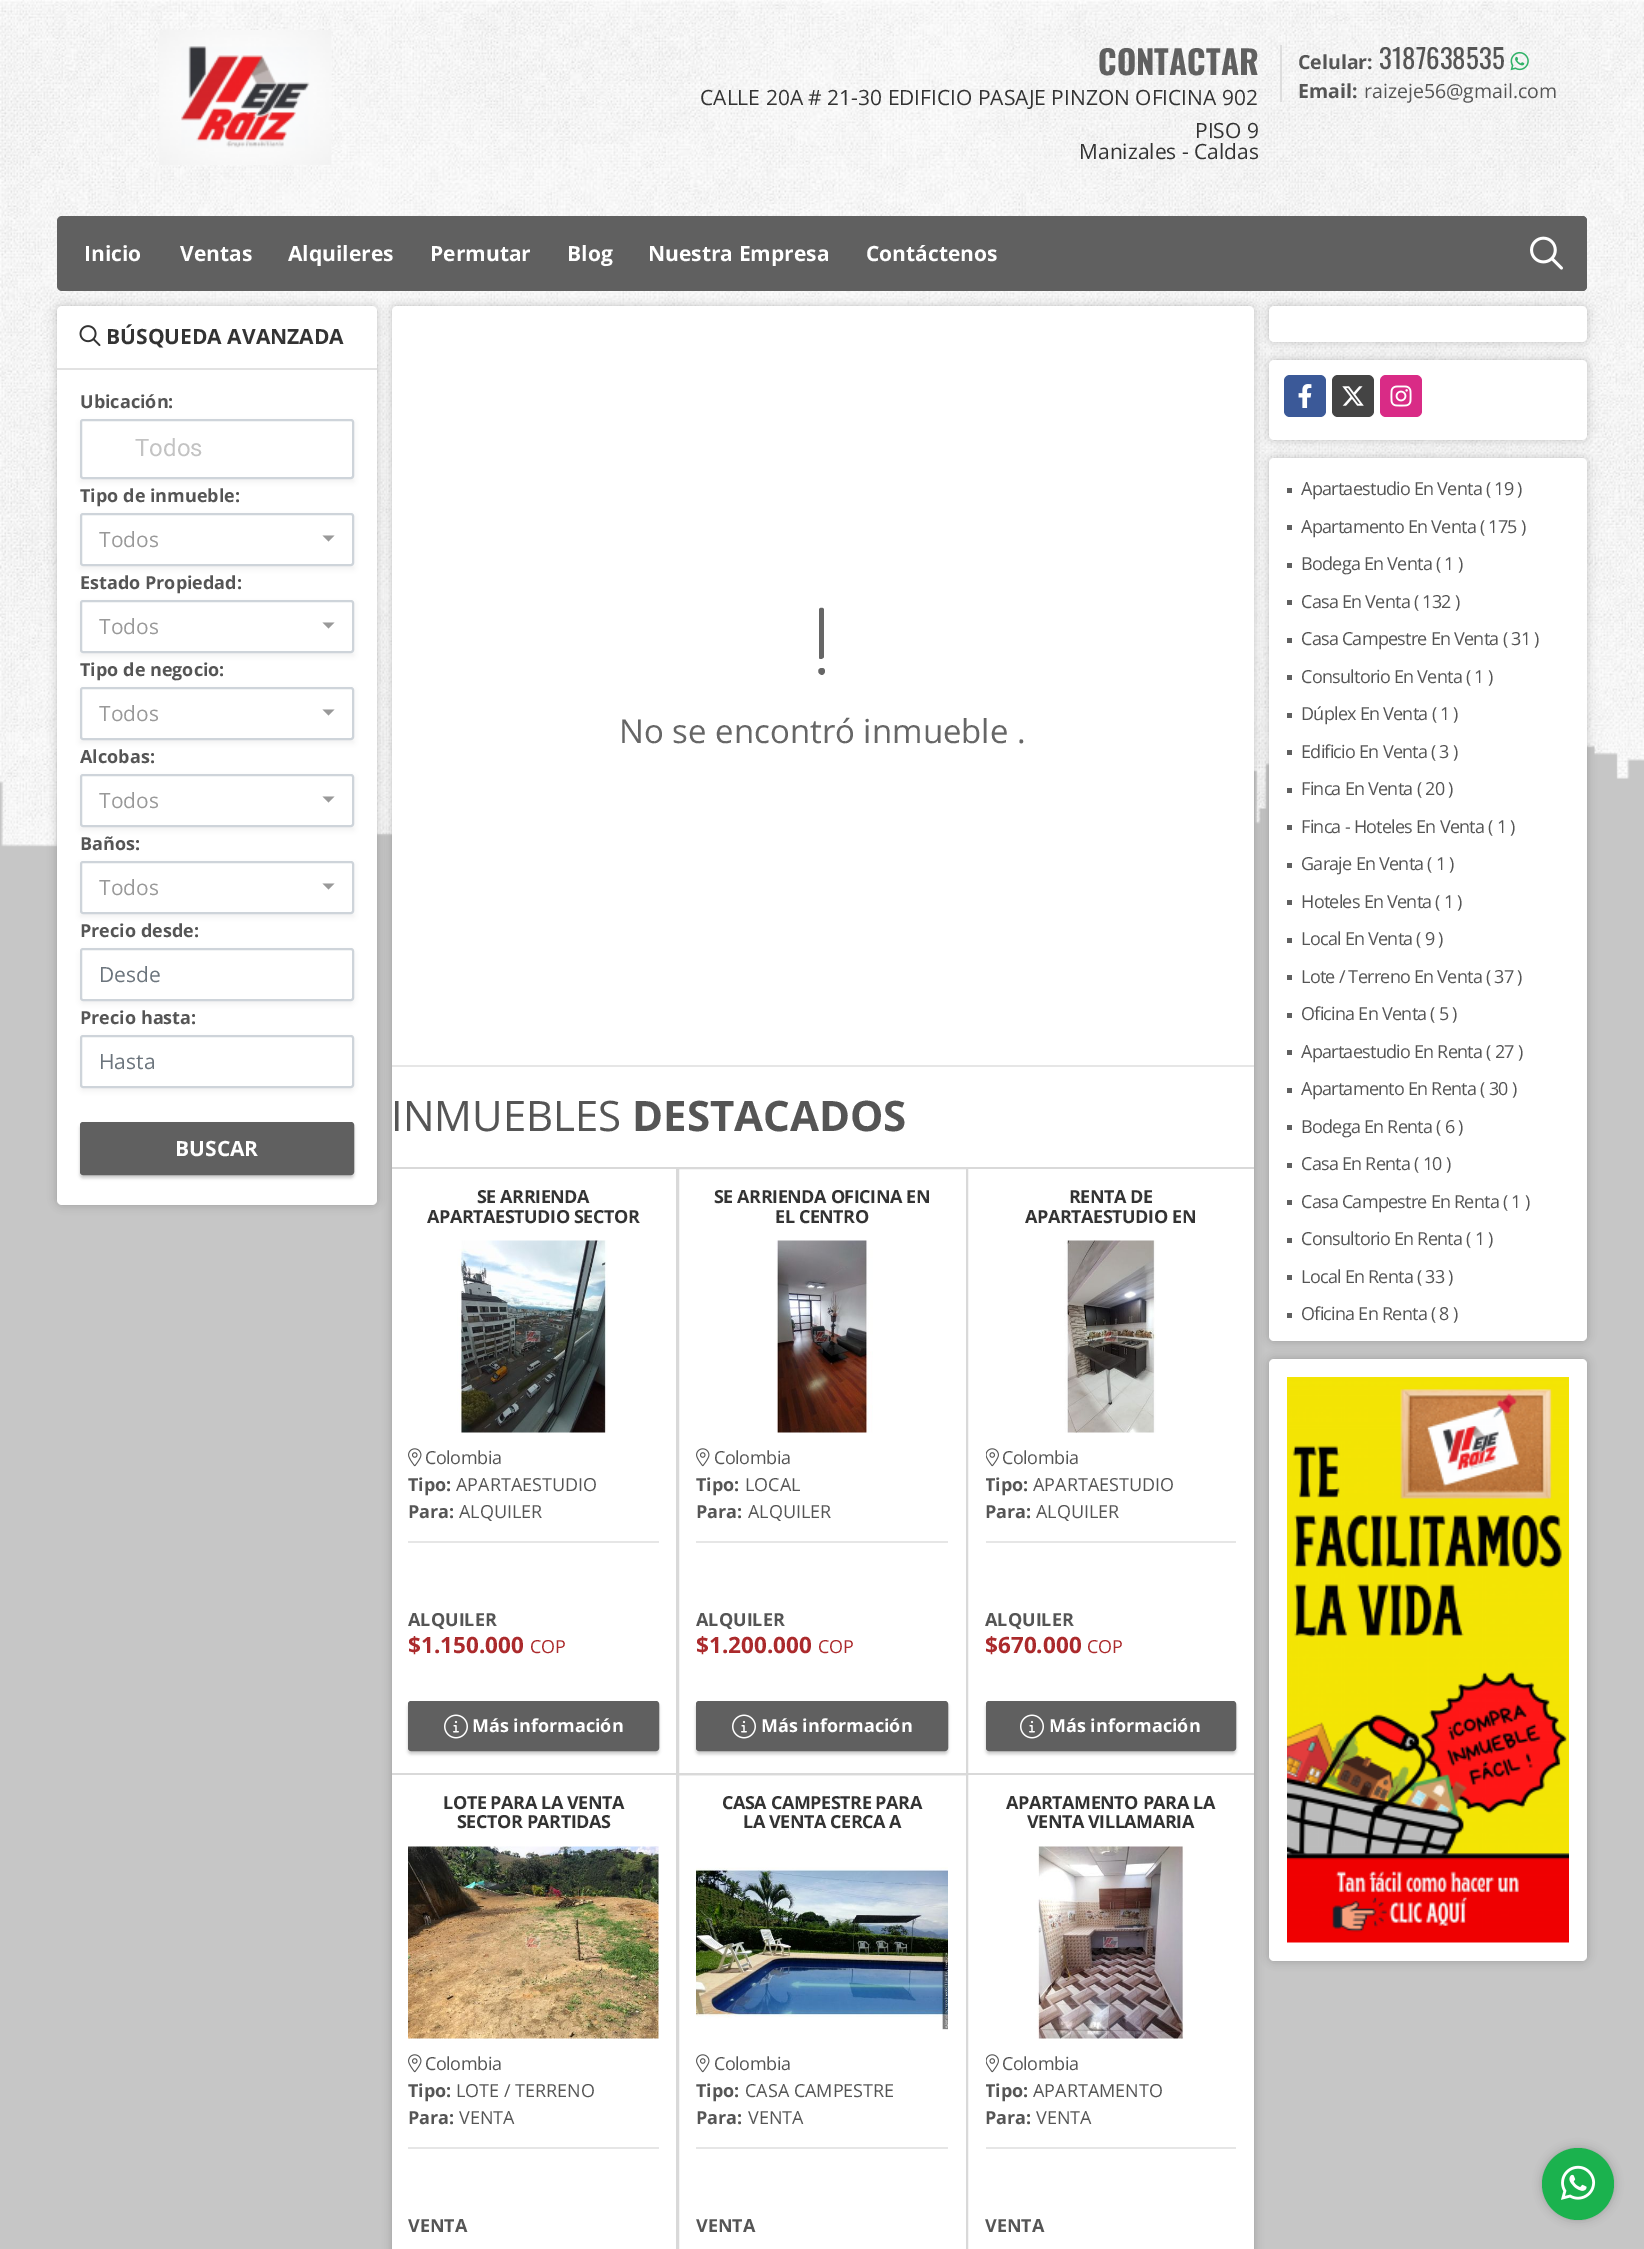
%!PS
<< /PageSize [1644 2249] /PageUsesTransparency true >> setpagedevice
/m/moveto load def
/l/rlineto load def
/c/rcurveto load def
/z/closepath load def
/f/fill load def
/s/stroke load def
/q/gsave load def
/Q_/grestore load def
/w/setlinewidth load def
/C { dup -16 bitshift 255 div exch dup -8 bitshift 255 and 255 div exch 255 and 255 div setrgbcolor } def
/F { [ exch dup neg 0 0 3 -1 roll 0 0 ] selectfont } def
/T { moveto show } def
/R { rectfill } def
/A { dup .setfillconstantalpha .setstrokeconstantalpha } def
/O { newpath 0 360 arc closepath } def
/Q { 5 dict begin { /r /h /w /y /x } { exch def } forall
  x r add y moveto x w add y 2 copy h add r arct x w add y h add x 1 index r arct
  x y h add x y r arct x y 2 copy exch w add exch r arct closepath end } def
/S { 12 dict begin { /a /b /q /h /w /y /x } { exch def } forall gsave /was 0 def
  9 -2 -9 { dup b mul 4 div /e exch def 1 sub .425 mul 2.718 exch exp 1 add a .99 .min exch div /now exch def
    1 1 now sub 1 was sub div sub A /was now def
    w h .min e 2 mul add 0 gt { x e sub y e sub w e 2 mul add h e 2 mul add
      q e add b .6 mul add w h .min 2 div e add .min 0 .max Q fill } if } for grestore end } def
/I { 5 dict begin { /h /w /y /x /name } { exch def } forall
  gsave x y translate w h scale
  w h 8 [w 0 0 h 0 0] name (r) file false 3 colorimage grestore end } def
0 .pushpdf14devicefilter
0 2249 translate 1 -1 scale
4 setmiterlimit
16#C6C6C6 C
0 0 1644 2249 R
(1.rgb) 0 0 1644 847 I
(2.rgb) 159 30 173 135 I
/Oswald-Bold 33 F
16#606060 C
(CONTACTAR) 1098 75 T
/OpenSans-Regular 21 F
16#333333 C
(CALLE 20A # 21-30 EDIFICIO PASAJE PINZON OFICINA 902) 700 105 T
(PISO 9) 1195 138 T
(Manizales - Caldas) 1079 159 T
16#DDDDDD C
1280 45 2 57 R
/OpenSans-Bold 19.5 F
16#555555 C
(Celular:) 1298 69 T
/Oswald-Regular 27 F
(3187638535) 1379 69 T
(3.rgb) 1510 51 19 20 I
/OpenSans-Bold 19.5 F
(Email:) 1298 98 T
/OpenSans-Regular 19.5 F
(raizeje56@gmail.com) 1364 98 T
16#606060 C
57 216 1530 75 5 Q f
/OpenSans-Bold 21 F
16#FFFFFF C
(Inicio) 84 261 T
(Ventas) 180 261 T
(Alquileres) 288 261 T
(Permutar) 430 261 T
(Blog) 567 261 T
(Nuestra Empresa) 648 261 T
(Contáctenos) 866 261 T
16#606060 C
1506 216 m 76 0 l 3 0 5 2 5 5 c 0 65 l 0 3 -2 5 -5 5 c -76 0 l z f
(4.rgb) 1530 236 33 34 I
16#000000 C
57 306 320 899 5 4.5 .2 S
16#FFFFFF C
57 306 320 899 5 Q f
16#E2E2E2 C
57 368 320 2 R
(5.rgb) 79 325 22 22 I
16#333333 C
(BÚSQUEDA AVANZADA) 106 344 T
/OpenSans-Bold 18 F
16#555555 C
(Ubicación:) 80 408 T
16#000000 C
80 422 274 60 0 3 .05 S
16#FFFFFF C
81 420 272 58 2 Q q f Q_
16#CED4DA C
2 w
s
/Roboto-Regular 24 F
16#C3C3C3 C
(Todos) 135 456 T
/OpenSans-Bold 18 F
16#555555 C
(Tipo de inmueble:) 80 502 T
16#000000 C
80 516 274 53 0 3 .05 S
16#FFFFFF C
81 514 272 51 2 Q q f Q_
16#CED4DA C
s
/OpenSans-Regular 21 F
16#999999 C
(Todos) 99 547 T
322.5 535.5 m 12 0 l -6 6 l z f
/OpenSans-Bold 18 F
16#555555 C
(Estado Propiedad:) 80 589 T
16#000000 C
80 603 274 53 0 3 .05 S
16#FFFFFF C
81 601 272 51 2 Q q f Q_
16#CED4DA C
s
/OpenSans-Regular 21 F
16#999999 C
(Todos) 99 634 T
322.5 622.5 m 12 0 l -6 6 l z f
/OpenSans-Bold 18 F
16#555555 C
(Tipo de negocio:) 80 676 T
16#000000 C
80 690 274 53 0 3 .05 S
16#FFFFFF C
81 688 272 51 2 Q q f Q_
16#CED4DA C
s
/OpenSans-Regular 21 F
16#999999 C
(Todos) 99 721 T
322.5 709.5 m 12 0 l -6 6 l z f
/OpenSans-Bold 18 F
16#555555 C
(Alcobas:) 80 763 T
16#000000 C
80 777 274 53 0 3 .05 S
16#FFFFFF C
81 775 272 51 2 Q q f Q_
16#CED4DA C
s
/OpenSans-Regular 21 F
16#999999 C
(Todos) 99 808 T
322.5 796.5 m 12 0 l -6 6 l z f
/OpenSans-Bold 18 F
16#555555 C
(Baños:) 80 850 T
16#000000 C
80 864 274 53 0 3 .05 S
16#FFFFFF C
81 862 272 51 2 Q q f Q_
16#CED4DA C
s
/OpenSans-Regular 21 F
16#999999 C
(Todos) 99 895 T
322.5 883.5 m 12 0 l -6 6 l z f
/OpenSans-Bold 18 F
16#555555 C
(Precio desde:) 80 937 T
q
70 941 m 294 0 l 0 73 l -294 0 l z 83 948 m 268 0 l 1.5 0 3 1.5 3 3 c 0 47 l 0 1.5 -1.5 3 -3 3 c -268 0 l -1.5 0 -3 -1.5 -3 -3 c 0 -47 l 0 -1.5 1.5 -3 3 -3 c z eoclip newpath
16#000000 C
80 951 274 53 3 3 .05 S
Q_
16#CED4DA C
81 949 272 51 2 Q s
/OpenSans-Regular 21 F
16#6C757D C
(Desde) 99 982 T
/OpenSans-Bold 18 F
16#555555 C
(Precio hasta:) 80 1024 T
q
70 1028 m 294 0 l 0 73 l -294 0 l z 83 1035 m 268 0 l 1.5 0 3 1.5 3 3 c 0 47 l 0 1.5 -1.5 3 -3 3 c -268 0 l -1.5 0 -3 -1.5 -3 -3 c 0 -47 l 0 -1.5 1.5 -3 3 -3 c z eoclip newpath
16#000000 C
80 1038 274 53 3 3 .05 S
Q_
16#CED4DA C
81 1036 272 51 2 Q s
/OpenSans-Regular 21 F
16#6C757D C
(Hasta) 99 1069 T
16#000000 C
80 1125 274 53 3 1.5 .2 S
16#606060 C
81 1123 272 51 2 Q q f Q_
s
/OpenSans-Bold 21 F
16#FFFFFF C
(BUSCAR) 175 1156 T
16#000000 C
392 306 862 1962 5 4.5 .2 S
16#FFFFFF C
392 306 862 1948 5 Q f
16#666666 C
824 610 m 0 -3 -5 -3 -5 0 c 0 48 l 1 2 4 1 5 -1 c z 822 675 m 4 -1 4 -7 0 -7 c -5 0 -5 6 0 7 c z f
/OpenSans-Regular 33 F
(No se encontró inmueble .) 619 743 T
16#E6E6E6 C
392 1065 862 2 R
/OpenSans-Regular 42 F
16#555555 C
(INMUEBLES) 391 1131 T
/OpenSans-Bold 42 F
(DESTACADOS) 632 1131 T
16#D9D9D9 C
392 1775 m 286 0 l 0 -608 l -286 0 l 0 2 l 284 0 l 0 604 l -284 0 l z f
/OpenSans-Bold 18 F
16#333333 C
477 1203 m -.45 0 (SE ARRIENDA) ashow
427 1223 m -.45 0 (APARTAESTUDIO SECTOR) ashow
(6.rgb) 457 1240 151 193 I
(7.rgb) 408 1448 14 19 I
/OpenSans-Regular 18 F
16#555555 C
425 1464 m -.45 0 (Colombia) ashow
/OpenSans-Bold 18 F
(Tipo:) 408 1491 T
/OpenSans-Regular 18 F
(APARTAESTUDIO) 456 1491 T
/OpenSans-Bold 18 F
(Para:) 408 1518 T
/OpenSans-Regular 18 F
(ALQUILER) 459 1518 T
16#E6E6E6 C
408 1541 251 2 R
/OpenSans-Bold 18 F
16#555555 C
(ALQUILER) 408 1626 T
/OpenSans-Bold 22.5 F
16#AB2A2C C
($1.150.000) 408 1653 T
/OpenSans-Regular 18 F
(COP) 530 1653 T
16#000000 C
408 1704 251 50 3 1.5 .2 S
16#606060 C
409 1702 249 48 2 Q q f Q_
s
(8.rgb) 444 1714 24 25 I
/OpenSans-Bold 18 F
16#FFFFFF C
(Más información) 472 1732 T
16#D9D9D9 C
678 1168 289 606 rectstroke
16#333333 C
714 1203 m -.45 0 (SE ARRIENDA OFICINA EN) ashow
775 1223 m -.45 0 (EL CENTRO) ashow
(9.rgb) 776 1240 97 193 I
(7.rgb) 696 1448 14 19 I
/OpenSans-Regular 18 F
16#555555 C
714 1464 m -.45 0 (Colombia) ashow
/OpenSans-Bold 18 F
(Tipo:) 696 1491 T
/OpenSans-Regular 18 F
(LOCAL) 745 1491 T
/OpenSans-Bold 18 F
(Para:) 696 1518 T
/OpenSans-Regular 18 F
(ALQUILER) 748 1518 T
16#E6E6E6 C
696 1541 252 2 R
/OpenSans-Bold 18 F
16#555555 C
(ALQUILER) 696 1626 T
/OpenSans-Bold 22.5 F
16#AB2A2C C
($1.200.000) 696 1653 T
/OpenSans-Regular 18 F
(COP) 818 1653 T
16#000000 C
696 1704 252 50 3 1.5 .2 S
16#606060 C
697 1702 250 48 2 Q q f Q_
s
(8.rgb) 732 1714 24 25 I
/OpenSans-Bold 18 F
16#FFFFFF C
(Más información) 761 1732 T
16#D9D9D9 C
966 1167 m 0 608 l 288 0 l 0 -2 l -286 0 l 0 -604 l 286 0 l 0 -2 l z f
16#333333 C
1069 1203 m -.45 0 (RENTA DE) ashow
1025 1223 m -.45 0 (APARTAESTUDIO EN) ashow
(10.rgb) 1064 1240 92 193 I
(11.rgb) 986 1448 13 19 I
/OpenSans-Regular 18 F
16#555555 C
1002 1464 m -.45 0 (Colombia) ashow
q
986 1445 250 81 rectclip
/OpenSans-Bold 18 F
(Tipo:) 985 1491 T
Q_
(APARTAESTUDIO) 1033 1491 T
/OpenSans-Bold 18 F
(Para:) 985 1518 T
/OpenSans-Regular 18 F
(ALQUILER) 1036 1518 T
16#E6E6E6 C
986 1541 250 2 R
/OpenSans-Bold 18 F
16#555555 C
(ALQUILER) 985 1626 T
/OpenSans-Bold 22.5 F
16#AB2A2C C
($670.000) 985 1653 T
/OpenSans-Regular 18 F
(COP) 1087 1653 T
16#000000 C
986 1704 250 50 3 1.5 .2 S
16#606060 C
987 1702 248 48 2 Q q f Q_
s
(8.rgb) 1020 1714 24 25 I
/OpenSans-Bold 18 F
16#FFFFFF C
(Más información) 1049 1732 T
16#D9D9D9 C
392 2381 m 286 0 l 0 -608 l -286 0 l 0 2 l 284 0 l 0 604 l -284 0 l z f
16#333333 C
443 1809 m -.45 0 (LOTE PARA LA VENTA) ashow
457 1828 m -.45 0 (SECTOR PARTIDAS) ashow
(12.rgb) 408 1846 251 193 I
(7.rgb) 408 2054 14 19 I
/OpenSans-Regular 18 F
16#555555 C
425 2070 m -.45 0 (Colombia) ashow
/OpenSans-Bold 18 F
(Tipo:) 408 2097 T
/OpenSans-Regular 18 F
(LOTE / TERRENO) 456 2097 T
/OpenSans-Bold 18 F
(Para:) 408 2124 T
/OpenSans-Regular 18 F
(VENTA) 459 2124 T
16#E6E6E6 C
408 2147 251 2 R
/OpenSans-Bold 18 F
16#555555 C
(VENTA) 408 2232 T
16#D9D9D9 C
678 1774 289 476 rectstroke
16#333333 C
722 1809 m -.45 0 (CASA CAMPESTRE PARA) ashow
743 1828 m -.45 0 (LA VENTA CERCA A) ashow
(13.rgb) 696 1867 252 163 I
(7.rgb) 696 2054 14 19 I
/OpenSans-Regular 18 F
16#555555 C
714 2070 m -.45 0 (Colombia) ashow
/OpenSans-Bold 18 F
(Tipo:) 696 2097 T
/OpenSans-Regular 18 F
(CASA CAMPESTRE) 745 2097 T
/OpenSans-Bold 18 F
(Para:) 696 2124 T
/OpenSans-Regular 18 F
(VENTA) 748 2124 T
16#E6E6E6 C
696 2147 252 2 R
/OpenSans-Bold 18 F
16#555555 C
(VENTA) 696 2232 T
16#333333 C
1006 1809 m -.45 0 (APARTAMENTO PARA LA) ashow
1027 1828 m -.45 0 (VENTA VILLAMARIA) ashow
(14.rgb) 1037 1846 147 193 I
(11.rgb) 986 2054 13 19 I
/OpenSans-Regular 18 F
16#555555 C
1002 2070 m -.45 0 (Colombia) ashow
q
986 2051 250 81 rectclip
/OpenSans-Bold 18 F
(Tipo:) 985 2097 T
Q_
(APARTAMENTO) 1033 2097 T
/OpenSans-Bold 18 F
(Para:) 985 2124 T
/OpenSans-Regular 18 F
(VENTA) 1036 2124 T
16#E6E6E6 C
986 2147 250 2 R
/OpenSans-Bold 18 F
16#555555 C
(VENTA) 985 2232 T
16#000000 C
1269 306 318 36 5 4.5 .2 S
16#FFFFFF C
1269 306 318 36 5 Q f
16#000000 C
1269 360 318 80 5 4.5 .2 S
16#FFFFFF C
1269 360 318 80 5 Q f
16#3B5998 C
1284 375 42 42 6 Q f
(15.rgb) 1298 384 14 24 I
16#444444 C
1332 375 42 42 6 Q f
(16.rgb) 1342 386 22 20 I
16#D92B86 C
1380 375 42 42 6 Q f
(17.rgb) 1390 385 22 22 I
16#000000 C
1269 458 318 883 5 4.5 .2 S
16#FFFFFF C
1269 458 318 883 5 Q f
16#606060 C
1287 488 5 5 R
/OpenSans-Regular 18 F
16#555555 C
1301 495 m -.75 0 (Apartaestudio En Venta \( 19 \)) ashow
16#606060 C
1287 525 5 5 R
16#555555 C
1301 533 m -.75 0 (Apartamento En Venta \( 175 \)) ashow
16#606060 C
1287 563 5 5 R
16#555555 C
1301 570 m -.75 0 (Bodega En Venta \( 1 \)) ashow
16#606060 C
1287 600 5 5 R
16#555555 C
1301 608 m -.75 0 (Casa En Venta \( 132 \)) ashow
16#606060 C
1287 638 5 5 R
16#555555 C
1301 645 m -.75 0 (Casa Campestre En Venta \( 31 \)) ashow
16#606060 C
1287 675 5 5 R
16#555555 C
1301 683 m -.75 0 (Consultorio En Venta \( 1 \)) ashow
16#606060 C
1287 713 5 5 R
16#555555 C
1301 720 m -.75 0 (Dúplex En Venta \( 1 \)) ashow
16#606060 C
1287 750 5 5 R
16#555555 C
1301 758 m -.75 0 (Edificio En Venta \( 3 \)) ashow
16#606060 C
1287 788 5 5 R
16#555555 C
1301 795 m -.75 0 (Finca En Venta \( 20 \)) ashow
16#606060 C
1287 825 5 5 R
16#555555 C
1301 833 m -.75 0 (Finca - Hoteles En Venta \( 1 \)) ashow
16#606060 C
1287 863 5 5 R
16#555555 C
1301 870 m -.75 0 (Garaje En Venta \( 1 \)) ashow
16#606060 C
1287 900 5 5 R
16#555555 C
1301 908 m -.75 0 (Hoteles En Venta \( 1 \)) ashow
16#606060 C
1287 938 5 5 R
16#555555 C
1301 945 m -.75 0 (Local En Venta \( 9 \)) ashow
16#606060 C
1287 975 5 5 R
16#555555 C
1301 983 m -.75 0 (Lote / Terreno En Venta \( 37 \)) ashow
16#606060 C
1287 1013 5 5 R
16#555555 C
1301 1020 m -.75 0 (Oficina En Venta \( 5 \)) ashow
16#606060 C
1287 1050 5 5 R
16#555555 C
1301 1058 m -.75 0 (Apartaestudio En Renta \( 27 \)) ashow
16#606060 C
1287 1088 5 5 R
16#555555 C
1301 1095 m -.75 0 (Apartamento En Renta \( 30 \)) ashow
16#606060 C
1287 1125 5 5 R
16#555555 C
1301 1133 m -.75 0 (Bodega En Renta \( 6 \)) ashow
16#606060 C
1287 1163 5 5 R
16#555555 C
1301 1170 m -.75 0 (Casa En Renta \( 10 \)) ashow
16#606060 C
1287 1200 5 5 R
16#555555 C
1301 1208 m -.75 0 (Casa Campestre En Renta \( 1 \)) ashow
16#606060 C
1287 1238 5 5 R
16#555555 C
1301 1245 m -.75 0 (Consultorio En Renta \( 1 \)) ashow
16#606060 C
1287 1275 5 5 R
16#555555 C
1301 1283 m -.75 0 (Local En Renta \( 33 \)) ashow
16#606060 C
1287 1313 5 5 R
16#555555 C
1301 1320 m -.75 0 (Oficina En Renta \( 8 \)) ashow
16#000000 C
1269 1359 318 602 5 4.5 .2 S
16#FFFFFF C
1269 1359 318 602 5 Q f
(18.rgb) 1287 1377 282 566 I
16#000000 C
1542 2148 72 72 36 4.5 .2 S
16#1BB24E C
1578 2184 36 O f
(19.rgb) 1561 2165 35 35 I
.poppdf14devicefilter showpage
